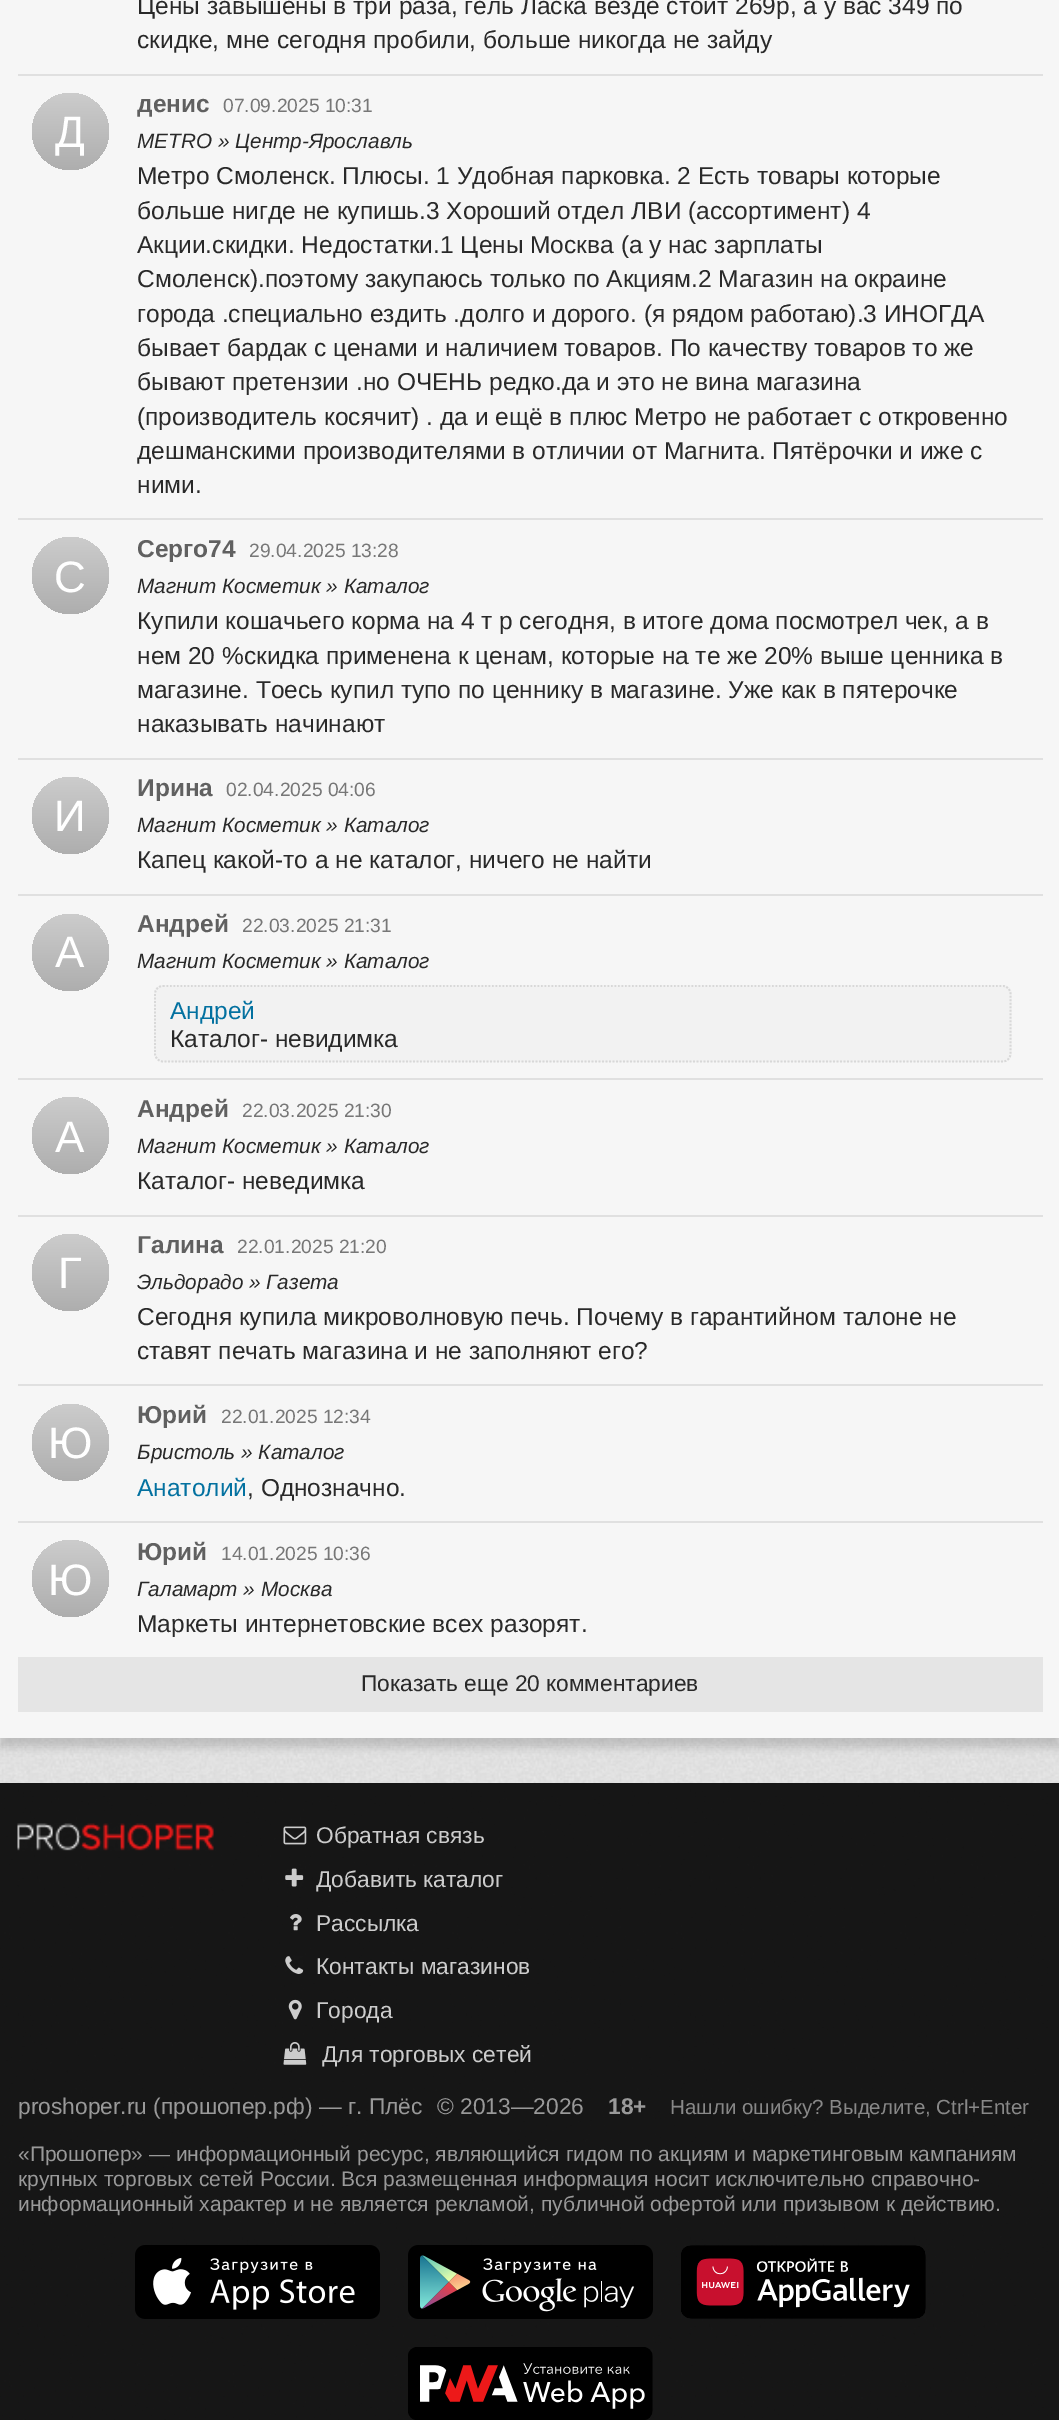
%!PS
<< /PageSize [1059 2420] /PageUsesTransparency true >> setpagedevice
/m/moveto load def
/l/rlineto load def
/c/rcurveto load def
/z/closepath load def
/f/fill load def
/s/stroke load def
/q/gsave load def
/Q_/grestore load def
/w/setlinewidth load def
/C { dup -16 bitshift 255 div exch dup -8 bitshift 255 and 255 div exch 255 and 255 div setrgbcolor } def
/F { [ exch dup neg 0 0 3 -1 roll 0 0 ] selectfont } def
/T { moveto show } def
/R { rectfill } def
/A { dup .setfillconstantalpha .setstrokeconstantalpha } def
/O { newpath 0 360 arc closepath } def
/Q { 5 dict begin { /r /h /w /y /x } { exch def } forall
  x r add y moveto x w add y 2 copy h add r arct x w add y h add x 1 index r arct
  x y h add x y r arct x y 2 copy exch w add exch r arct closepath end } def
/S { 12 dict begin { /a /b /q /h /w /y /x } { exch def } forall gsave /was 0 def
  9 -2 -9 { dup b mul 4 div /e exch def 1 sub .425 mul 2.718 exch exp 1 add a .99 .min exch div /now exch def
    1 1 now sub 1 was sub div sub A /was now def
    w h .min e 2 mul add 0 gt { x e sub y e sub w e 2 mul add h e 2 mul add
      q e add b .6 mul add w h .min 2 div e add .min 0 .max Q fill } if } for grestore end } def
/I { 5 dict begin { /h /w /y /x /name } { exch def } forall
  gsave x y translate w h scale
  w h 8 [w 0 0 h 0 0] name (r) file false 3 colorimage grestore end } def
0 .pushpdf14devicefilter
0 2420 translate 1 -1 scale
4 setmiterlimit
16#FFFFFF C
0 0 1059 2420 R
(1.rgb) 0 1738 1059 682 I
16#000000 C
0 -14 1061 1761 0 4.5 .15 S
16#F6F6F6 C
0 0 1059 1738 R
/LiberationSans-Regular 24.5 F
16#292929 C
(Цены завышены в три раза, гель Ласка везде стоит 269р, а у вас 349 по) 137 14 T
(скидке, мне сегодня пробили, больше никогда не зайду) 137 48 T
16#E0E0E0 C
18 74 1025 2 R
q 70.5 131.5 38.5 O clip newpath
<< /ShadingType 2 /ColorSpace /DeviceRGB /Coords [70 93 70 170] /Extend [true true] /Function << /FunctionType 2 /Domain [0 1] /C0 [.8 .8 .8] /C1 [.682 .682 .682] /N 1 >> >> shfill Q_
/LiberationSans-Regular 44 F
16#FFFFFF C
(Д) 55 147 T
/LiberationSans-Bold 24.5 F
16#606060 C
(денис) 137 112 T
/LiberationSans-Regular 19.25 F
16#777777 C
(07.09.2025 10:31) 223 112 T
/LiberationSans-Italic 20.75 F
16#292929 C
(METRO » Центр-Ярославль) 137 148 T
/LiberationSans-Regular 24.5 F
(Метро Смоленск. Плюсы. 1 Удобная парковка. 2 Есть товары которые) 137 184 T
(больше нигде не купишь.3 Хороший отдел ЛВИ \(ассортимент\) 4) 137 219 T
(Акции.скидки. Недостатки.1 Цены Москва \(а у нас зарплаты) 137 253 T
(Смоленск\).поэтому закупаюсь только по Акциям.2 Магазин на окраине) 137 287 T
(города .специально ездить .долго и дорого. \(я рядом работаю\).3 ИНОГДА) 137 322 T
(бывает бардак с ценами и наличием товаров. По качеству товаров то же) 137 356 T
(бывают претензии .но ОЧЕНЬ редко.да и это не вина магазина) 137 390 T
(\(производитель косячит\) . да и ещё в плюс Метро не работает с откровенно) 137 425 T
(дешманскими производителями в отличии от Магнита. Пятёрочки и иже с) 137 459 T
(ними.) 137 493 T
16#E0E0E0 C
18 518 1025 2 R
q 70.5 575.5 38.5 O clip newpath
<< /ShadingType 2 /ColorSpace /DeviceRGB /Coords [70 537 70 614] /Extend [true true] /Function << /FunctionType 2 /Domain [0 1] /C0 [.8 .8 .8] /C1 [.682 .682 .682] /N 1 >> >> shfill Q_
/LiberationSans-Regular 44 F
16#FFFFFF C
(С) 54 592 T
/LiberationSans-Bold 24.5 F
16#606060 C
(Серго74) 137 557 T
/LiberationSans-Regular 19.25 F
16#777777 C
(29.04.2025 13:28) 249 557 T
/LiberationSans-Italic 20.75 F
16#292929 C
(Магнит Косметик » Каталог) 137 593 T
/LiberationSans-Regular 24.5 F
(Купили кошачьего корма на 4 т р сегодня, в итоге дома посмотрел чек, а в) 137 629 T
(нем 20 %скидка применена к ценам, которые на те же 20% выше ценника в) 137 664 T
(магазине. Тоесь купил тупо по ценнику в магазине. Уже как в пятерочке) 137 698 T
(наказывать начинают) 137 732 T
16#E0E0E0 C
18 758 1025 2 R
q 70.5 815.5 38.5 O clip newpath
<< /ShadingType 2 /ColorSpace /DeviceRGB /Coords [70 777 70 854] /Extend [true true] /Function << /FunctionType 2 /Domain [0 1] /C0 [.8 .8 .8] /C1 [.682 .682 .682] /N 1 >> >> shfill Q_
/LiberationSans-Regular 44 F
16#FFFFFF C
(И) 54 831 T
/LiberationSans-Bold 24.5 F
16#606060 C
(Ирина) 137 796 T
/LiberationSans-Regular 19.25 F
16#777777 C
(02.04.2025 04:06) 226 796 T
/LiberationSans-Italic 20.75 F
16#292929 C
(Магнит Косметик » Каталог) 137 832 T
/LiberationSans-Regular 24.5 F
(Капец какой-то а не каталог, ничего не найти) 137 868 T
16#E0E0E0 C
18 894 1025 2 R
q 70.5 952.5 38.5 O clip newpath
<< /ShadingType 2 /ColorSpace /DeviceRGB /Coords [70 914 70 991] /Extend [true true] /Function << /FunctionType 2 /Domain [0 1] /C0 [.8 .8 .8] /C1 [.682 .682 .682] /N 1 >> >> shfill Q_
/LiberationSans-Regular 44 F
16#FFFFFF C
(А) 55 967 T
/LiberationSans-Bold 24.5 F
16#606060 C
(Андрей) 137 932 T
/LiberationSans-Regular 19.25 F
16#777777 C
(22.03.2025 21:31) 242 932 T
/LiberationSans-Italic 20.75 F
16#292929 C
(Магнит Косметик » Каталог) 137 968 T
16#F2F2F2 C
154 985 858 77 9 Q f
16#D8D8D8 C
1.8 w
[1.75 1.75] 0 setdash
163 986 m 840 0 l 4 0 7.5 3.5 7.5 8 c 0 59.5 l 0 4.5 -3.5 8 -7.5 8 c -840 0 l -4.5 0 -8 -3.5 -8 -8 c 0 -59.5 l 0 -4.5 3.5 -8 8 -8 c z s
/LiberationSans-Regular 24.5 F
16#0371A0 C
(Андрей) 170 1019 T
16#292929 C
(Каталог- невидимка) 170 1047 T
16#E0E0E0 C
18 1078 1025 2 R
q 70.5 1135.5 38.5 O clip newpath
<< /ShadingType 2 /ColorSpace /DeviceRGB /Coords [70 1097 70 1174] /Extend [true true] /Function << /FunctionType 2 /Domain [0 1] /C0 [.8 .8 .8] /C1 [.682 .682 .682] /N 1 >> >> shfill Q_
/LiberationSans-Regular 44 F
16#FFFFFF C
(А) 55 1152 T
/LiberationSans-Bold 24.5 F
16#606060 C
(Андрей) 137 1117 T
/LiberationSans-Regular 19.25 F
16#777777 C
(22.03.2025 21:30) 242 1117 T
/LiberationSans-Italic 20.75 F
16#292929 C
(Магнит Косметик » Каталог) 137 1153 T
/LiberationSans-Regular 24.5 F
(Каталог- неведимка) 137 1189 T
16#E0E0E0 C
18 1215 1025 2 R
q 70.5 1272.5 38.5 O clip newpath
<< /ShadingType 2 /ColorSpace /DeviceRGB /Coords [70 1234 70 1311] /Extend [true true] /Function << /FunctionType 2 /Domain [0 1] /C0 [.8 .8 .8] /C1 [.682 .682 .682] /N 1 >> >> shfill Q_
/LiberationSans-Regular 44 F
16#FFFFFF C
(Г) 58 1288 T
/LiberationSans-Bold 24.5 F
16#606060 C
(Галина) 137 1253 T
/LiberationSans-Regular 19.25 F
16#777777 C
(22.01.2025 21:20) 237 1253 T
/LiberationSans-Italic 20.75 F
16#292929 C
(Эльдорадо » Газета) 137 1289 T
/LiberationSans-Regular 24.5 F
(Сегодня купила микроволновую печь. Почему в гарантийном талоне не) 137 1325 T
(ставят печать магазина и не заполняют его?) 137 1359 T
16#E0E0E0 C
18 1384 1025 2 R
q 70.5 1442.5 38.5 O clip newpath
<< /ShadingType 2 /ColorSpace /DeviceRGB /Coords [70 1404 70 1481] /Extend [true true] /Function << /FunctionType 2 /Domain [0 1] /C0 [.8 .8 .8] /C1 [.682 .682 .682] /N 1 >> >> shfill Q_
/LiberationSans-Regular 44 F
16#FFFFFF C
(Ю) 48 1458 T
/LiberationSans-Bold 24.5 F
16#606060 C
(Юрий) 137 1423 T
/LiberationSans-Regular 19.25 F
16#777777 C
(22.01.2025 12:34) 221 1423 T
/LiberationSans-Italic 20.75 F
16#292929 C
(Бристоль » Каталог) 137 1459 T
/LiberationSans-Regular 24.5 F
16#0371A0 C
(Анатолий) 137 1496 T
16#292929 C
(, Однозначно.) 247 1496 T
16#E0E0E0 C
18 1521 1025 2 R
q 70.5 1578.5 38.5 O clip newpath
<< /ShadingType 2 /ColorSpace /DeviceRGB /Coords [70 1540 70 1617] /Extend [true true] /Function << /FunctionType 2 /Domain [0 1] /C0 [.8 .8 .8] /C1 [.682 .682 .682] /N 1 >> >> shfill Q_
/LiberationSans-Regular 44 F
16#FFFFFF C
(Ю) 48 1595 T
/LiberationSans-Bold 24.5 F
16#606060 C
(Юрий) 137 1560 T
/LiberationSans-Regular 19.25 F
16#777777 C
(14.01.2025 10:36) 221 1560 T
/LiberationSans-Italic 20.75 F
16#292929 C
(Галамарт » Москва) 137 1596 T
/LiberationSans-Regular 24.5 F
(Маркеты интернетовские всех разорят.) 137 1632 T
16#E5E5E5 C
18 1657 1025 55 R
/LiberationSans-Regular 22.75 F
16#292929 C
(Показать еще 20 комментариев) 361 1691 T
0.9 A
16#000000 C
0 1783 1059 637 R
1 A
(2.rgb) 17 1823 197 28 I
(3.rgb) 283 1826 24 19 I
16#CCCCCC C
(Обратная связь) 316 1843 T
(4.rgb) 285 1868 19 19 I
(Добавить каталог) 316 1887 T
(5.rgb) 290 1914 12 17 I
(Рассылка) 316 1931 T
(6.rgb) 285 1956 19 18 I
(Контакты магазинов) 316 1974 T
(7.rgb) 288 1999 14 21 I
(Города) 316 2018 T
(8.rgb) 283 2042 24 23 I
(Для торговых сетей) 322 2062 T
16#999999 C
(proshoper.ru \(прошопер.рф\) — г. Плёс) 18 2114 T
(© 2013—2026) 437 2114 T
/LiberationSans-Bold 22.75 F
(18+) 608 2114 T
/LiberationSans-Regular 20.5 F
16#888888 C
(Нашли ошибку? Выделите, Ctrl+Enter) 670 2114 T
/LiberationSans-Regular 21 F
16#999999 C
(«Прошопер» — информационный ресурс, являющийся гидом по акциям и маркетинговым кампаниям) 18 2161 T
(крупных торговых сетей России. Вся размещенная информация носит исключительно справочно-) 18 2186 T
(информационный характер и не является рекламой, публичной офертой или призывом к действию.) 18 2211 T
(9.rgb) 135 2245 245 74 I
(10.rgb) 408 2245 245 74 I
(11.rgb) 681 2245 245 74 I
(12.rgb) 408 2347 245 73 I
.poppdf14devicefilter showpage
